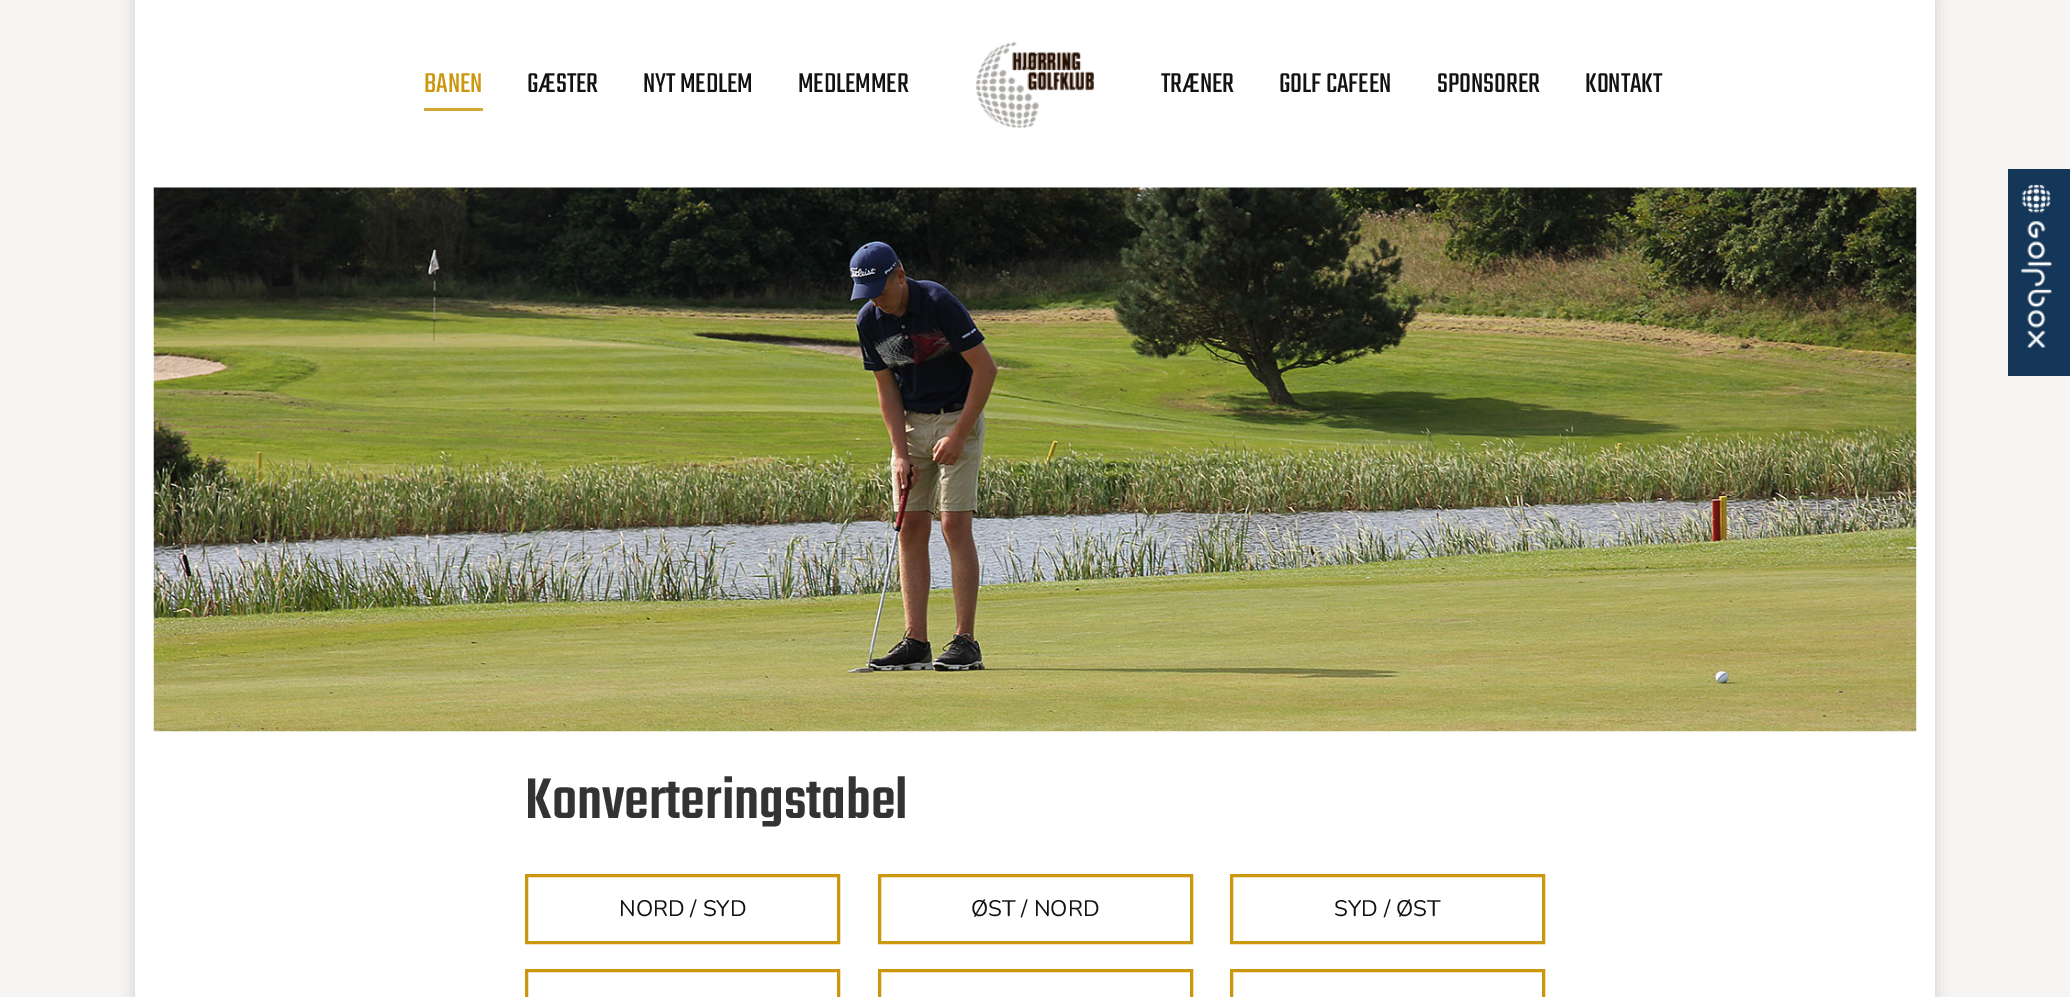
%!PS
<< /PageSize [2070 997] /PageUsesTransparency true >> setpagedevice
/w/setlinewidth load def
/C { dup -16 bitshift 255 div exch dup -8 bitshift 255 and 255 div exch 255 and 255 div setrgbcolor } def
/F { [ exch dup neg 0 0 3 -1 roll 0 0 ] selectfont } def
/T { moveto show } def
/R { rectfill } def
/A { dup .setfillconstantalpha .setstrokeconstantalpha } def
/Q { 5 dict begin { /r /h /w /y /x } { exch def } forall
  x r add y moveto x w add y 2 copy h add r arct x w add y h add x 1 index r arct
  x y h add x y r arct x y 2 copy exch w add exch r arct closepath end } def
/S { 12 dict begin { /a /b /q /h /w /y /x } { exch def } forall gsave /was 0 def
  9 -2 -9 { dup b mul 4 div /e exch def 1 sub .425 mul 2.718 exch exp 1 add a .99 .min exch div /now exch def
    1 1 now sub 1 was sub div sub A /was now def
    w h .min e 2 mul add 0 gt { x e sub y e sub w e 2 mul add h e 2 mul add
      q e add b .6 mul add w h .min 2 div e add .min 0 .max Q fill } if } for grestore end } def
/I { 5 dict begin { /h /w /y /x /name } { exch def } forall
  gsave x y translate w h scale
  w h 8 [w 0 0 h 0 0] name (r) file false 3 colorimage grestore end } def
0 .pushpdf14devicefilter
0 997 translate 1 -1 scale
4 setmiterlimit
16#F6F5F4 C
0 0 2070 997 R
16#000000 C
135 0 1800 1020 0 7.5 .15 S
16#FFFFFF C
135 0 1800 997 R
/Teko-Regular 30 F
16#CC970E C
(BANEN) 424 92 T
16#D4A732 C
424 108 59 3 R
16#131313 C
(GÆSTER) 527 92 T
(NYT MEDLEM) 643 92 T
(MEDLEMMER) 798 92 T
(1.rgb) 976 42 118 86 I
(TRÆNER) 1161 92 T
(GOLF CAFEEN) 1279 92 T
(SPONSORER) 1437 92 T
(KONTAKT) 1585 92 T
(2.rgb) 153 187 1764 545 I
/Teko-Medium 62.5 F
16#333333 C
(Konverteringstabel) 525 818 T
16#CC970E C
3 w
526.5 875.5 312 67 rectstroke
/Nunito-Regular 22.5 F
16#131313 C
(NORD / SYD) 619 916 T
16#CC970E C
879.5 875.5 312 67 rectstroke
16#131313 C
(ØST / NORD) 971 916 T
16#CC970E C
1231.5 875.5 312 67 rectstroke
16#131313 C
(SYD / ØST) 1334 916 T
16#CC970E C
526.5 970.5 312 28 rectstroke
879.5 970.5 312 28 rectstroke
1231.5 970.5 312 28 rectstroke
16#143659 C
2008 169 62 207 R
(3.rgb) 2021 184 31 164 I
.poppdf14devicefilter showpage
